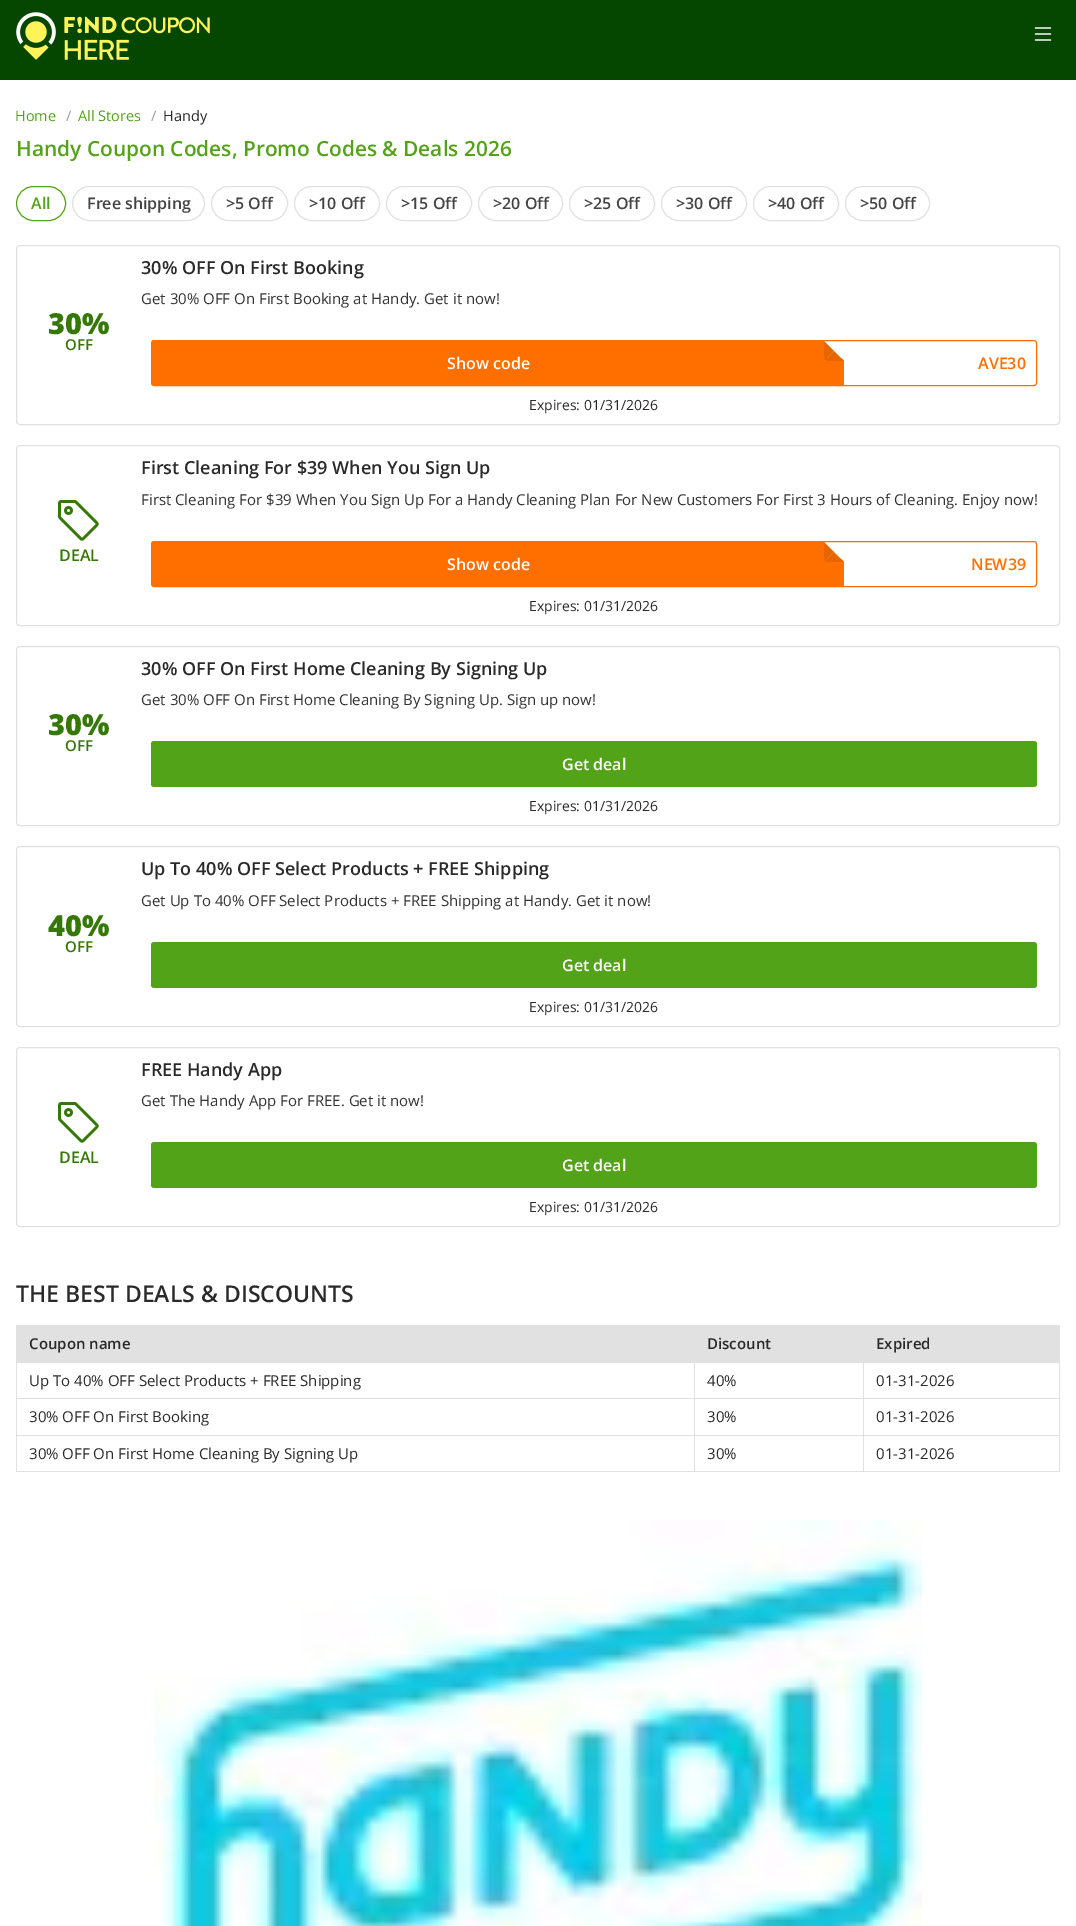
%!PS
<< /PageSize [1076 1926] >> setpagedevice
/m/moveto load def
/l/rlineto load def
/c/rcurveto load def
/z/closepath load def
/f/fill load def
/s/stroke load def
/C { dup -16 bitshift 255 div exch dup -8 bitshift 255 and 255 div exch 255 and 255 div setrgbcolor } def
/F { [ exch dup neg 0 0 3 -1 roll 0 0 ] selectfont } def
/T { moveto show } def
/R { rectfill } def
/Q { 5 dict begin { /r /h /w /y /x } { exch def } forall
  x r add y moveto x w add y 2 copy h add r arct x w add y h add x 1 index r arct
  x y h add x y r arct x y 2 copy exch w add exch r arct closepath end } def
/I { 5 dict begin { /h /w /y /x /name } { exch def } forall
  gsave x y translate w h scale
  w h 8 [w 0 0 h 0 0] name (r) file false 3 colorimage grestore end } def
0 1926 translate 1 -1 scale
4 setmiterlimit
16#FFFFFF C
0 0 1076 1926 R
16#054700 C
0 0 1076 80 R
(1.rgb) 16 12 194 48 I
(2.rgb) 1034 27 18 14 I
/OpenSans-Regular 14.5 F
16#53A318 C
(Home) 15 121 T
16#999999 C
(/) 66 121 T
16#53A318 C
(All Stores) 78 121 T
16#999999 C
(/) 151 121 T
16#2A2A2A C
(Handy) 163 121 T
/OpenSans-SemiBold 20.9 F
16#53A318 C
(Handy Coupon Codes, Promo Codes & Deals 2026) 16 156 T
16.5 186.5 49 34 17 Q s
/OpenSans-SemiBold 16 F
(All) 31 209 T
16#E1E1E1 C
72.5 186.5 132 34 17 Q s
16#444444 C
(Free shipping) 87 209 T
16#E1E1E1 C
211.5 186.5 76 34 17 Q s
16#444444 C
(>5 Off) 226 209 T
16#E1E1E1 C
294.5 186.5 85 34 17 Q s
16#444444 C
(>10 Off) 309 209 T
16#E1E1E1 C
386.5 186.5 85 34 17 Q s
16#444444 C
(>15 Off) 401 209 T
16#E1E1E1 C
478.5 186.5 84 34 17 Q s
16#444444 C
(>20 Off) 493 209 T
16#E1E1E1 C
569.5 186.5 85 34 17 Q s
16#444444 C
(>25 Off) 584 209 T
16#E1E1E1 C
661.5 186.5 85 34 17 Q s
16#444444 C
(>30 Off) 676 209 T
16#E1E1E1 C
753.5 186.5 85 34 17 Q s
16#444444 C
(>40 Off) 768 209 T
16#E1E1E1 C
845.5 186.5 84 34 17 Q s
16#444444 C
(>50 Off) 860 209 T
16#E1E1E1 C
16.5 245.5 1043 179 3.5 Q s
/OpenSans-SemiBold 18 F
16#2A2A2A C
(30% OFF On First Booking) 141 274 T
/OpenSans-Regular 15 F
16#333333 C
(Get 30% OFF On First Booking at Handy. Get it now!) 141 304 T
/OpenSans-ExtraBold 29 F
16#367806 C
(30%) 48 334 T
/OpenSans-SemiBold 15 F
(OFF) 65 350 T
16#FF6F00 C
151.5 340.5 885 45 2.5 Q s
824 358 m 15 0 l 3 0 5 2 5 5 c 0 22 l -20 0 l z f
16#E76500 C
834 351 m -8.5 8.5 l .5 1 2 1.5 3.5 1.5 c 15 0 l z f
834 351 m -10 -10 l 0 15 l 0 1.5 .5 3 1.5 3.5 c z f
16#FF6F00 C
152 341 672 44 R
/OpenSans-SemiBold 16 F
16#FFFFFF C
(Show code) 447 369 T
16#FF6F00 C
(AVE30) 978 369 T
/OpenSans-Regular 14 F
16#2A2A2A C
(Expires: 01/31/2026) 529 410 T
16#E1E1E1 C
16.5 445.5 1043 180 3.5 Q s
/OpenSans-SemiBold 18 F
16#2A2A2A C
(First Cleaning For $39 When You Sign Up) 141 474 T
/OpenSans-Regular 15 F
16#333333 C
(First Cleaning For $39 When You Sign Up For a Handy Cleaning Plan For New Customers For First 3 Hours of Cleaning. Enjoy now!) 141 505 T
(3.rgb) 58 500 41 41 I
/OpenSans-SemiBold 16 F
16#367806 C
(DEAL) 59 561 T
16#FF6F00 C
151.5 541.5 885 45 2.5 Q s
824 559 m 15 0 l 3 0 5 2 5 5 c 0 22 l -20 0 l z f
16#E76500 C
834 552 m -8.5 8.5 l .5 1 2 1.5 3.5 1.5 c 15 0 l z f
834 552 m -10 -10 l 0 15 l 0 1.5 .5 3 1.5 3.5 c z f
16#FF6F00 C
152 542 672 44 R
16#FFFFFF C
(Show code) 447 570 T
16#FF6F00 C
(NEW39) 971 570 T
/OpenSans-Regular 14 F
16#2A2A2A C
(Expires: 01/31/2026) 529 611 T
16#E1E1E1 C
16.5 646.5 1043 179 3.5 Q s
/OpenSans-SemiBold 18 F
16#2A2A2A C
(30% OFF On First Home Cleaning By Signing Up) 141 675 T
/OpenSans-Regular 15 F
16#333333 C
(Get 30% OFF On First Home Cleaning By Signing Up. Sign up now!) 141 705 T
/OpenSans-ExtraBold 29 F
16#367806 C
(30%) 48 735 T
/OpenSans-SemiBold 15 F
(OFF) 65 751 T
16#53A318 C
151 741 886 46 3 Q f
/OpenSans-SemiBold 16 F
16#FFFFFF C
(Get deal) 562 770 T
/OpenSans-Regular 14 F
16#2A2A2A C
(Expires: 01/31/2026) 529 811 T
16#E1E1E1 C
16.5 846.5 1043 180 3.5 Q s
/OpenSans-SemiBold 18 F
16#2A2A2A C
(Up To 40% OFF Select Products + FREE Shipping) 141 875 T
/OpenSans-Regular 15 F
16#333333 C
(Get Up To 40% OFF Select Products + FREE Shipping at Handy. Get it now!) 141 906 T
/OpenSans-ExtraBold 29 F
16#367806 C
(40%) 48 936 T
/OpenSans-SemiBold 15 F
(OFF) 65 952 T
16#53A318 C
151 942 886 46 3 Q f
/OpenSans-SemiBold 16 F
16#FFFFFF C
(Get deal) 562 971 T
/OpenSans-Regular 14 F
16#2A2A2A C
(Expires: 01/31/2026) 529 1012 T
16#E1E1E1 C
16.5 1047.5 1043 179 3.5 Q s
/OpenSans-SemiBold 18 F
16#2A2A2A C
(FREE Handy App) 141 1076 T
/OpenSans-Regular 15 F
16#333333 C
(Get The Handy App For FREE. Get it now!) 141 1106 T
(3.rgb) 58 1102 41 41 I
/OpenSans-SemiBold 16 F
16#367806 C
(DEAL) 59 1163 T
16#53A318 C
151 1142 886 46 3 Q f
16#FFFFFF C
(Get deal) 562 1171 T
/OpenSans-Regular 14 F
16#2A2A2A C
(Expires: 01/31/2026) 529 1212 T
/OpenSans-SemiBold 23 F
(THE BEST DEALS & DISCOUNTS) 16 1302 T
16#E1E1E1 C
16 1325 1044 1 R
1059 1325 1 147 R
16 1471 1044 1 R
16 1325 1 147 R
17 1326 1042 36 R
/OpenSans-SemiBold 15 F
16#2A2A2A C
(Coupon name) 29 1349 T
(Discount) 707 1349 T
(Expired) 876 1349 T
16#E1E1E1 C
863 1362 197 1 R
863 1398 197 1 R
863 1435 197 1 R
863 1435 1 37 R
694 1435 170 1 R
863 1398 1 38 R
694 1398 170 1 R
863 1362 1 37 R
694 1362 170 1 R
694 1435 1 37 R
16 1435 679 1 R
694 1398 1 38 R
16 1398 679 1 R
694 1362 1 37 R
16 1362 679 1 R
/OpenSans-Regular 15 F
16#2A2A2A C
(Up To 40% OFF Select Products + FREE Shipping) 29 1386 T
(40%) 707 1386 T
(01-31-2026) 876 1386 T
(30% OFF On First Booking) 29 1422 T
(30%) 707 1422 T
(01-31-2026) 876 1422 T
(30% OFF On First Home Cleaning By Signing Up) 29 1459 T
(30%) 707 1459 T
(01-31-2026) 876 1459 T
(4.rgb) 154 1520 768 406 I
showpage
